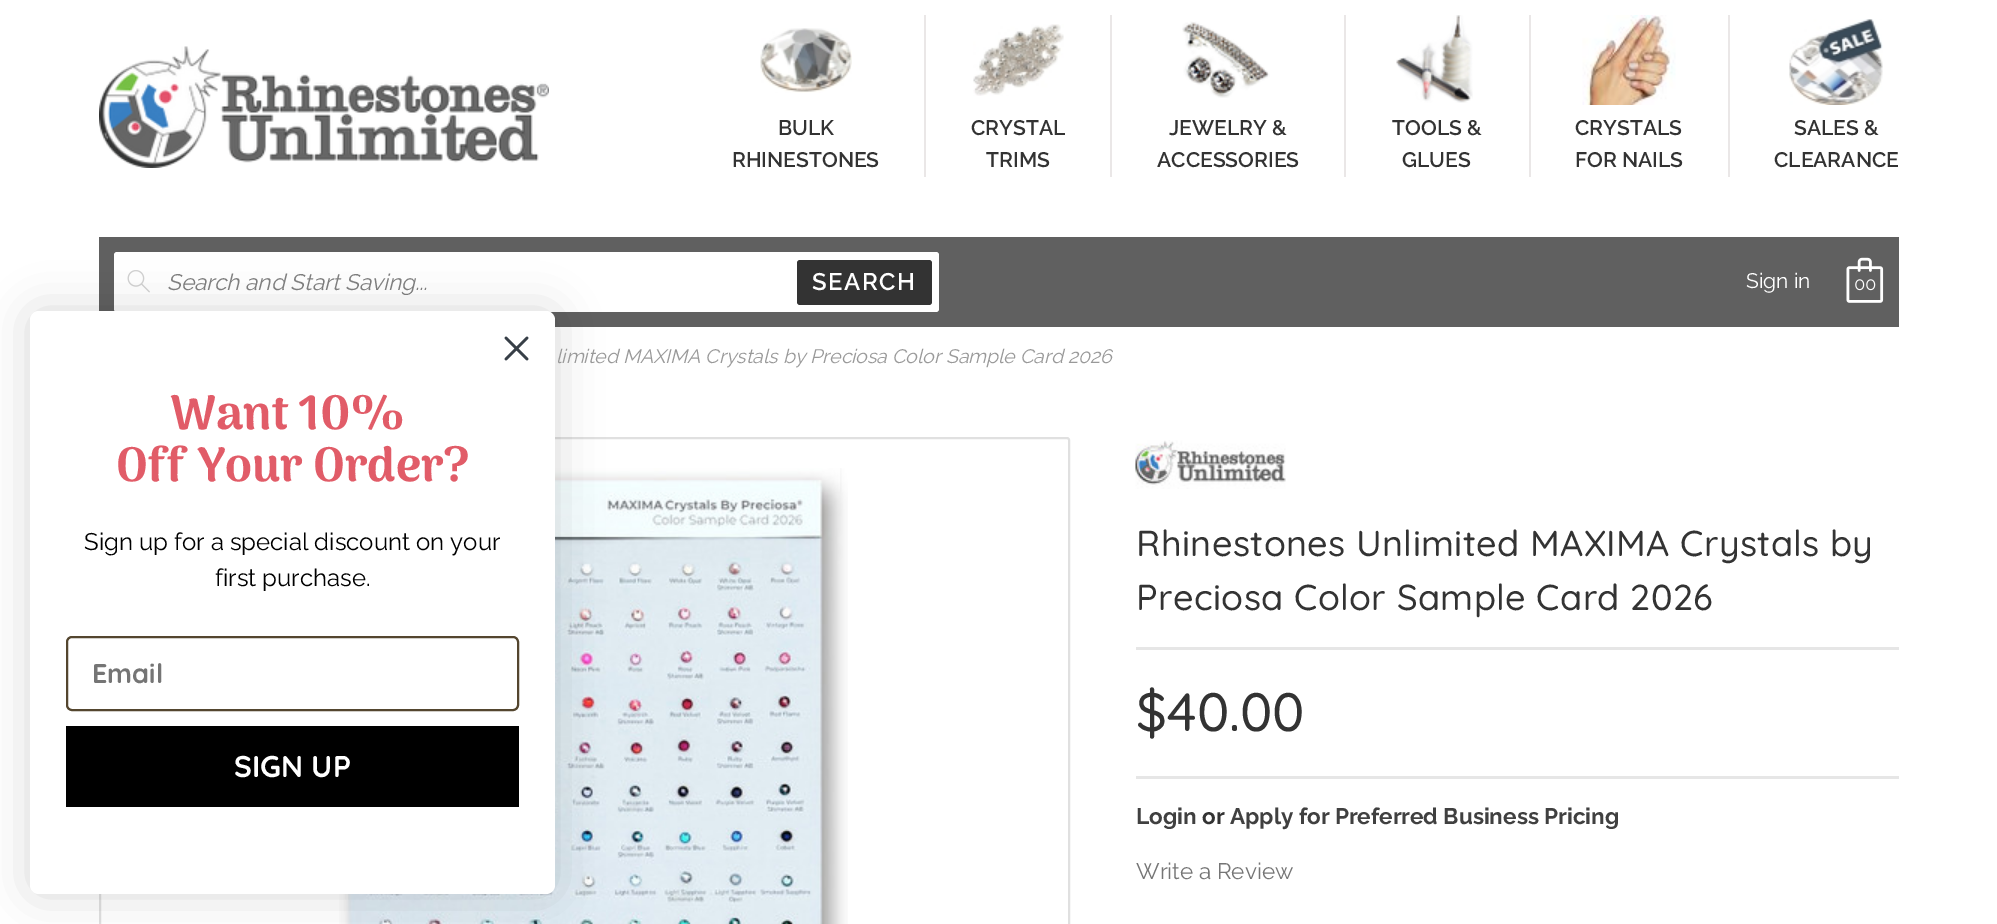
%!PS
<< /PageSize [1997 924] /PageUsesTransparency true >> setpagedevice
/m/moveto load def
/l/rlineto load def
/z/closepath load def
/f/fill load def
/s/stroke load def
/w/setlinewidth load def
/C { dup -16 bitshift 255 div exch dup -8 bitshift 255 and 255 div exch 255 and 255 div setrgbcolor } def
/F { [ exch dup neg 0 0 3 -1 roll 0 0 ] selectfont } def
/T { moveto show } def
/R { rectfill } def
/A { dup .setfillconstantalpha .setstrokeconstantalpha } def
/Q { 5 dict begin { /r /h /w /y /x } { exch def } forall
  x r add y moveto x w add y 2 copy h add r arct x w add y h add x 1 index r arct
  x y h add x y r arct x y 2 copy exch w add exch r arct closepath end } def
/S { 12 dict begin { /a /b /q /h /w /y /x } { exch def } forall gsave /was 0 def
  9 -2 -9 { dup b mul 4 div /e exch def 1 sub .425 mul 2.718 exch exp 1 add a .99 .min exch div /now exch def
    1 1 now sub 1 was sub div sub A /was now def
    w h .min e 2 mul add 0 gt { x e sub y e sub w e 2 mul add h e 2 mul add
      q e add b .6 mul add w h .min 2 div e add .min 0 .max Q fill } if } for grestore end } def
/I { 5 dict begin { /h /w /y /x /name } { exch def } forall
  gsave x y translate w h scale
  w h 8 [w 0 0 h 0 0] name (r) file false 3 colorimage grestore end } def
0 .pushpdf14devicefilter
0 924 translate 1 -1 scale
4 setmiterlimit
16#FFFFFF C
0 0 1997 924 R
(1.rgb) 99 46 450 122 I
(2.rgb) 760 28 92 65 I
/Raleway-SemiBold 21 F
16#333333 C
(BULK) 778 135 T
(RHINESTONES) 732 167 T
16#EAE7E7 C
924 15 2 162 R
(3.rgb) 973 24 91 72 I
16#333333 C
(CRYSTAL) 971 135 T
(TRIMS) 986 167 T
16#EAE7E7 C
1110 15 2 162 R
(4.rgb) 1182 21 88 77 I
16#333333 C
(JEWELRY &) 1169 135 T
(ACCESSORIES) 1157 167 T
16#EAE7E7 C
1344 15 2 162 R
(5.rgb) 1396 15 77 88 I
16#333333 C
(TOOLS &) 1392 135 T
(GLUES) 1402 167 T
16#EAE7E7 C
1529 15 2 162 R
(6.rgb) 1582 15 94 90 I
16#333333 C
(CRYSTALS) 1575 135 T
(FOR NAILS) 1575 167 T
16#EAE7E7 C
1728 15 2 162 R
(7.rgb) 1789 19 94 86 I
16#333333 C
(SALES &) 1794 135 T
(CLEARANCE) 1774 167 T
16#606060 C
99 237 1800 90 R
16#FFFFFF C
114 252 825 60 3 Q f
(8.rgb) 127 270 23 23 I
/Raleway-ThinItalic 22.5 F
16#808080 C
(Search and Start Saving...) 167 290 T
16#333333 C
797 260 135 45 3 Q f
/Raleway-SemiBold 24 F
16#FFFFFF C
812 290 m 1.5 0 (SEARCH) ashow
/Raleway-Thin 21 F
(Sign in) 1746 288 T
/Raleway-Thin 18 F
(00) 1854 290 T
(9.rgb) 1846 257 38 46 I
16#E0E0E0 C
2 w
100 438 969 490 2 Q s
(10.rgb) 339 468 509 456 I
16#000000 C
30 311 525 583 9 22.5 .15 S
16#FFFFFF C
30 311 525 583 9 Q f
16#373F47 C
2.6 w
1 setlinecap
1 setlinejoin
506 338 m 21 21 l 506 359 m 21 -21 l z s
/Arima-Bold 48 F
16#E15C68 C
(Want 10%) 170 429 T
(Off Your Order?) 116 481 T
/Raleway-Thin 24 F
16#000000 C
(Sign up for a special discount on your) 84 550 T
(first purchase.) 215 586 T
16#54462F C
2 w
0 setlinecap
0 setlinejoin
67 637 451 73 5 Q s
/Quicksand-Bold 27 F
16#757575 C
(Email) 92 683 T
16#000000 C
66 726 453 81 R
/Quicksand-Bold 30 F
16#FFFFFF C
(SIGN UP) 234 777 T
/Raleway-ThinItalic 19.5 F
16#999999 C
(limited MAXIMA Crystals by Preciosa Color Sample Card 2026) 556 363 T
(11.rgb) 1135 440 151 49 I
16#E6E6E6 C
1136 647 763 3 R
/Quicksand-Medium 36 F
16#333333 C
1136 556 m .4 0 (Rhinestones Unlimited MAXIMA Crystals by) ashow
1136 610 m .4 0 (Preciosa Color Sample Card 2026) ashow
16#E6E6E6 C
1136 776 763 3 R
/Quicksand-Medium 54 F
16#333333 C
($40.00) 1136 731 T
/Raleway-Bold 22.5 F
16#404040 C
(Login) 1136 824 T
16#333333 C
(or) 1202 824 T
16#404040 C
(Apply for Preferred Business Pricing) 1230 824 T
/Raleway-Thin 22.5 F
16#757575 C
(Write a Review) 1136 879 T
.poppdf14devicefilter showpage
